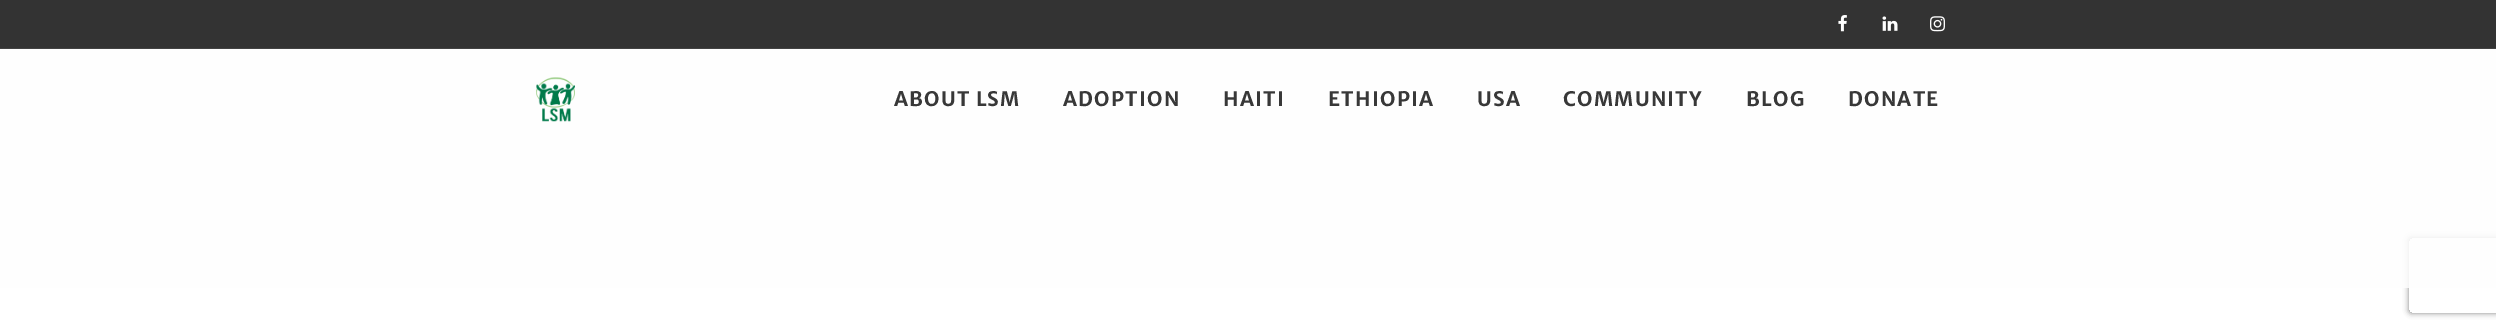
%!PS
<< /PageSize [2496 329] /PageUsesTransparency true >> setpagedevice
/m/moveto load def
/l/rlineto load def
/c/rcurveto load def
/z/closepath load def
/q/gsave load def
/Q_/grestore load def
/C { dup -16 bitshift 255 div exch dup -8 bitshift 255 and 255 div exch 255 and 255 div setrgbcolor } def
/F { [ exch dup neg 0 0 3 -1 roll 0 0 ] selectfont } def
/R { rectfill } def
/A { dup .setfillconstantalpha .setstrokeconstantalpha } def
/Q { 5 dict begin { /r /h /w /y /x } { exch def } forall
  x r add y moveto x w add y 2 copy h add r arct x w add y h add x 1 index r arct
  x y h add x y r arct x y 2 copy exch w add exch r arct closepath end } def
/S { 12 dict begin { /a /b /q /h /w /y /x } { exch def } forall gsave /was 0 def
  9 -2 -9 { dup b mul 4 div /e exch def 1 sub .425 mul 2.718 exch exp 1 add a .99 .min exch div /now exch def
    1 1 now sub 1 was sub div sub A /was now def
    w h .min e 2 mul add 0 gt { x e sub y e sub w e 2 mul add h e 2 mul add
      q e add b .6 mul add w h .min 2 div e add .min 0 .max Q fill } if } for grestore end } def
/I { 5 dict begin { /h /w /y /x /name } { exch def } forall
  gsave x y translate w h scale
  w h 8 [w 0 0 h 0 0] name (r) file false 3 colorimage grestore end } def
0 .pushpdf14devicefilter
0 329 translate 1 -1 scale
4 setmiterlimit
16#F8F8F8 C
0 0 2496 329 R
16#FFFFFF C
0 288 2496 41 R
q
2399 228 m 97 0 l 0 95 l -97 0 l z 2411.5 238 m 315 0 l 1.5 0 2.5 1 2.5 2.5 c 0 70 l 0 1.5 -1 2.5 -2.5 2.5 c -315 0 l -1.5 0 -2.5 -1 -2.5 -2.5 c 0 -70 l 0 -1.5 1 -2.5 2.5 -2.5 c z eoclip newpath
16#808080 C
2409 238 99 75 2.5 3 1 S
Q_
0.83 A
0 49 2496 239 R
1 A
16#333333 C
0 0 2496 48 R
16#434343 C
0 48 2496 1 R
(1.rgb) 1838 15 9 17 I
(2.rgb) 1882 16 16 15 I
(3.rgb) 1930 16 15 16 I
(4.rgb) 536 77 39 45 I
/MerriweatherSans-Bold 20 F
16#383838 C
894 106 m 1.25 0 (ABOUT LSM) ashow
1063 106 m 1.25 0 (ADOPTION) ashow
1223 106 m 1.25 0 (HAITI) ashow
1328 106 m 1.25 0 (ETHIOPIA) ashow
1477 106 m 1.25 0 (USA) ashow
1563 106 m 1.25 0 (COMMUNITY) ashow
1746 106 m 1.25 0 (BLOG) ashow
1848 106 m 1.25 0 (DONATE) ashow
.poppdf14devicefilter showpage
